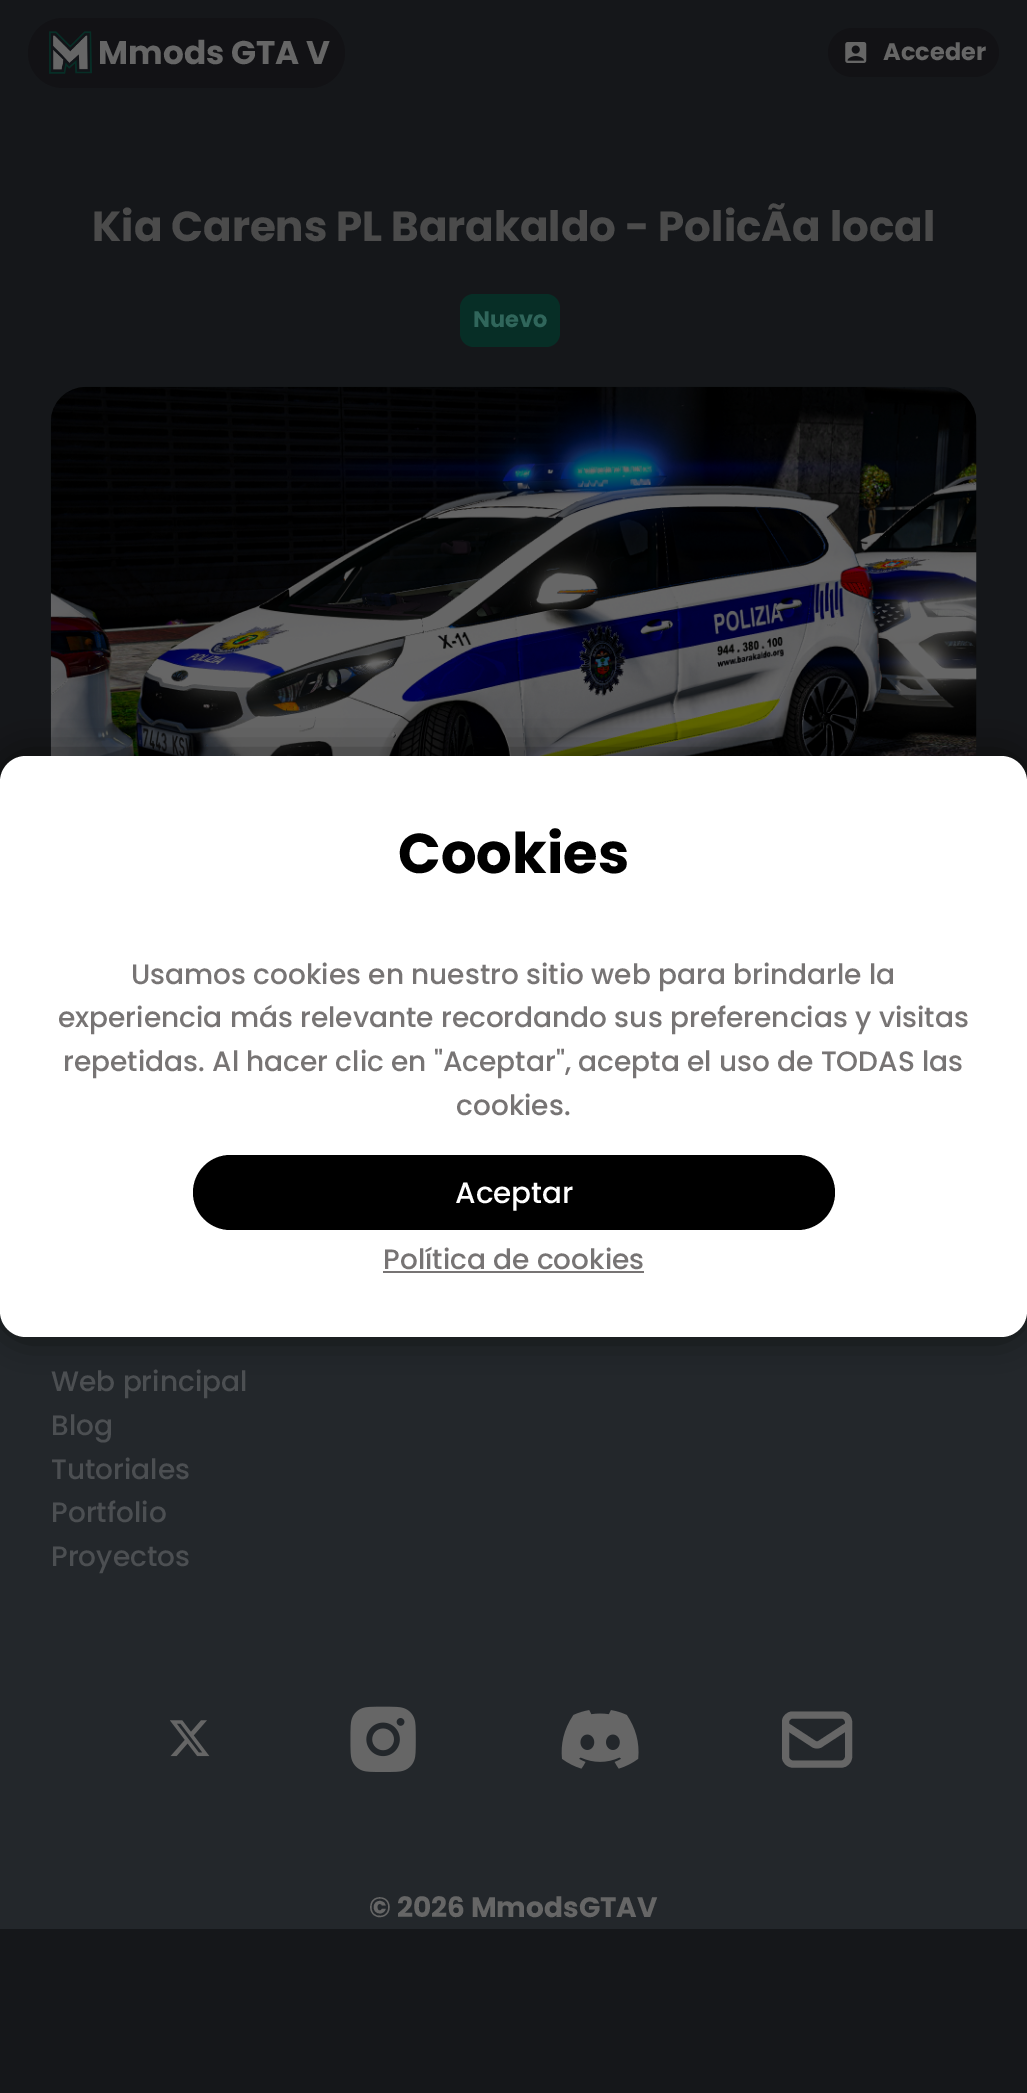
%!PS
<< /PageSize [1027 2093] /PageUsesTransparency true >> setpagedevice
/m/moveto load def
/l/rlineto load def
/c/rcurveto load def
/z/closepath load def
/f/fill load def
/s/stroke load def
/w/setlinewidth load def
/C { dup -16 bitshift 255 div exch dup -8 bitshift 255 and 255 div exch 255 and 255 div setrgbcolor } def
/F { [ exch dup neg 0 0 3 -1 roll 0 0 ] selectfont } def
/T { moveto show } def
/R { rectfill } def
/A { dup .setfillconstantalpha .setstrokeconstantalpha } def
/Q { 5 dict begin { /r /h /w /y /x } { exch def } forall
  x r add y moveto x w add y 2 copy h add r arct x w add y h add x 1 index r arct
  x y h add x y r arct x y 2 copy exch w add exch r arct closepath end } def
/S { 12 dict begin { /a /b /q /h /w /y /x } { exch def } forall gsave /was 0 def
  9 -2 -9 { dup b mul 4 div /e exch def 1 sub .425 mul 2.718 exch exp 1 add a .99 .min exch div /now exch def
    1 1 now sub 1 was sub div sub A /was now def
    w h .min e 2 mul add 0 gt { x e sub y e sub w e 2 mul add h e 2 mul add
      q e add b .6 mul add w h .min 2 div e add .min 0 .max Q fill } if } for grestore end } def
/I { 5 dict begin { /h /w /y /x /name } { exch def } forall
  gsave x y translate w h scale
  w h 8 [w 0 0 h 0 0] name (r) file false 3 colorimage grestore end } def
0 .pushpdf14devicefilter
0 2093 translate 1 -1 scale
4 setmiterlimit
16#15171A C
0 0 1027 2093 R
16#121215 C
28 18 317 70 35 Q f
(1.rgb) 49 31 43 43 I
/Poppins-Bold 32.75 F
16#666666 C
(Mmods GTA V) 98 64 T
16#121215 C
828 28 171 49 24.5 Q f
(2.rgb) 845 42 22 21 I
/Poppins-Bold 24 F
16#666666 C
(Acceder) 883 60 T
/Poppins-Bold 42 F
16#4B4B4B C
(Kia Carens PL Barakaldo - PolicÃa local) 92 241 T
16#072E26 C
460 294 100 53 14 Q f
/Poppins-Bold 22.5 F
16#30665B C
(Nuevo) 473 327 T
(3.rgb) 50 386 927 370 I
16#23272B C
0 1311 1027 618 R
16#000000 C
5 761 1017 571 21 19 .75 S
16#FFFFFF C
0 756 1027 581 26 Q f
/Poppins-Bold 56 F
16#000000 C
(Cookies) 398 873 T
/Poppins-Medium 28 F
16#777474 C
(Usamos cookies en nuestro sitio web para brindarle la) 131 984 T
(experiencia más relevante recordando sus preferencias y visitas) 58 1027 T
(repetidas. Al hacer clic en "Aceptar", acepta el uso de TODAS las) 63 1071 T
(cookies.) 456 1115 T
16#000000 C
193 1155 642 75 37.5 Q f
/Poppins-Medium 29.5 F
16#FFFFFF C
(Aceptar) 455 1203 T
/Poppins-Medium 28 F
16#777474 C
(Política de cookies) 383 1269 T
383 1271 261 2 R
16#4C4F52 C
(Web principal) 51 1391 T
(Blog) 51 1435 T
(Tutoriales) 51 1479 T
(Portfolio) 51 1522 T
(Proyectos) 51 1566 T
(4.rgb) 170 1720 40 37 I
(5.rgb) 350 1706 66 66 I
(6.rgb) 561 1710 78 59 I
16#666666 C
7 w
1 setlinecap
1 setlinejoin
785.5 1725.5 m 27.5 18 l 2.5 2 5.5 2 8 0 c 27.5 -18 l 792.5 1764 m 49 0 l 4 0 7 -3.5 7 -7 c 0 -35 l 0 -4 -3 -7 -7 -7 c -49 0 l -3.5 0 -7 3 -7 7 c 0 35 l 0 3.5 3.5 7 7 7 c z s
/Poppins-Bold 28 F
(© 2026 MmodsGTAV) 369 1917 T
.poppdf14devicefilter showpage
